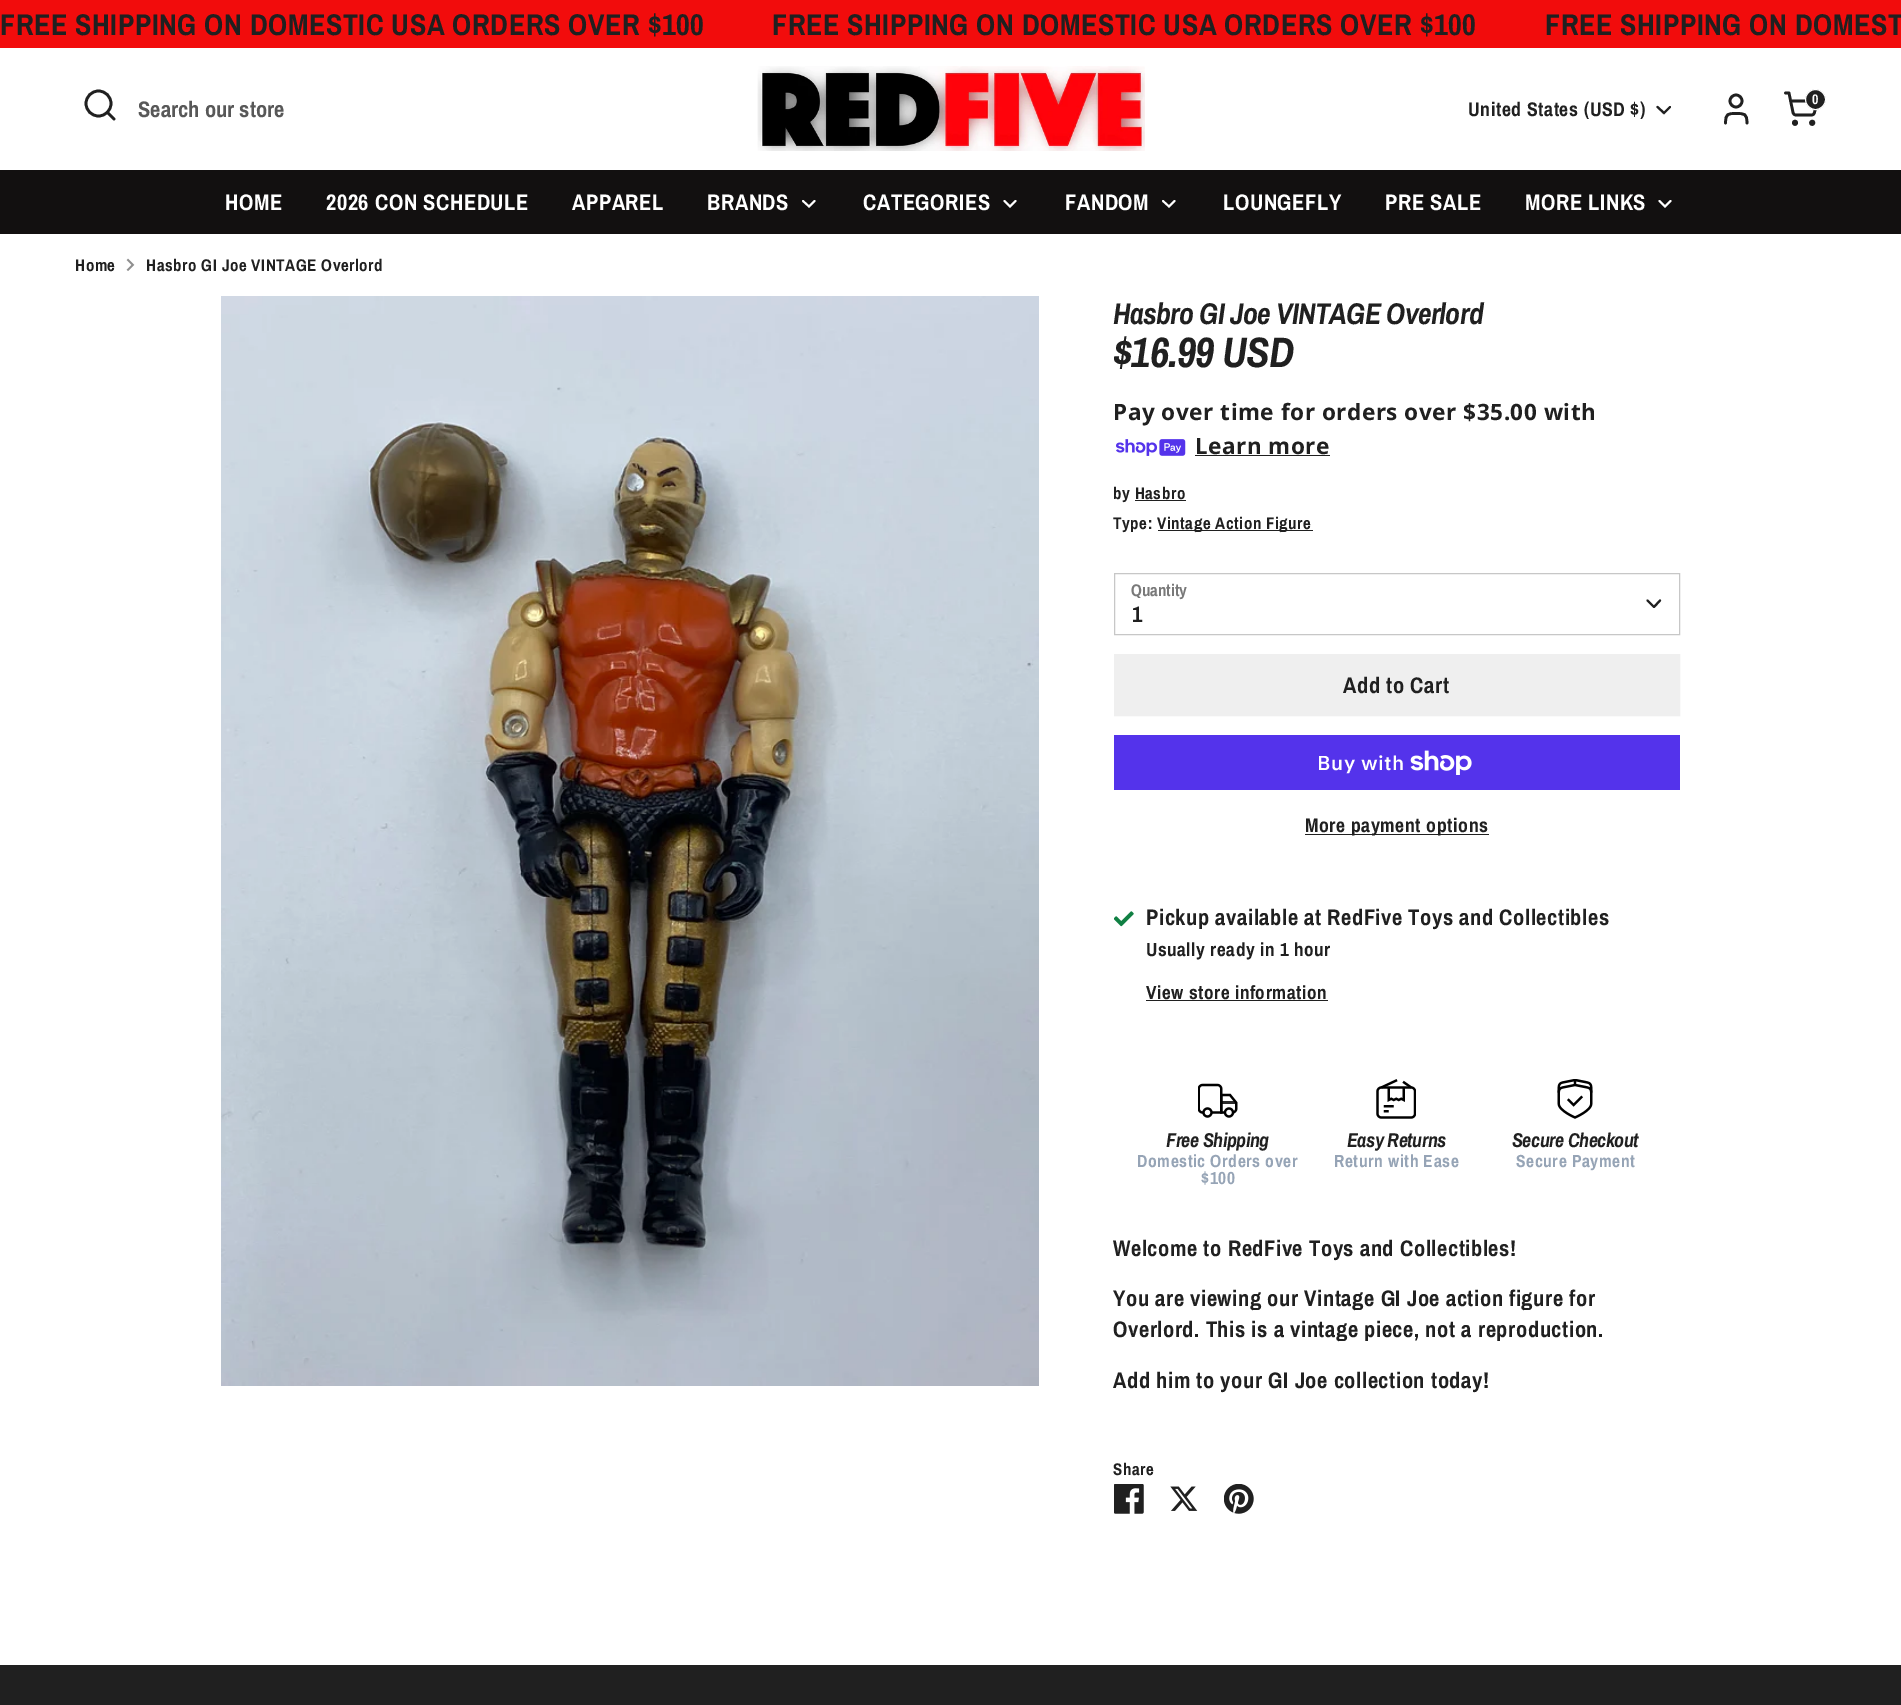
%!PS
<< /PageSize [1901 1705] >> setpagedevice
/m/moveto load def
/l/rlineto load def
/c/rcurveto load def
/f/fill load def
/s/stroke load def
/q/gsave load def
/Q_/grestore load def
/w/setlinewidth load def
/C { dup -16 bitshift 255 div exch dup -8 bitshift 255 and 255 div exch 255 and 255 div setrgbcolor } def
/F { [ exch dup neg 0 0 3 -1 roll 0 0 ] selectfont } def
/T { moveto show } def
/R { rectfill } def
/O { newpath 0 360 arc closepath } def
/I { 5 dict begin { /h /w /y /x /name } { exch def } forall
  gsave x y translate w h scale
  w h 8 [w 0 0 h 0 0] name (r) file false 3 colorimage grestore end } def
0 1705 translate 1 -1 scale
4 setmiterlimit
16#FFFFFF C
0 0 1901 1705 R
16#F20C0C C
0 0 1901 48 R
/ArchivoNarrow-Bold 30 F
16#202020 C
0 35 m .55 0 (FREE SHIPPING ON DOMESTIC USA ORDERS OVER $100) ashow
772 35 m .55 0 (FREE SHIPPING ON DOMESTIC USA ORDERS OVER $100) ashow
1545 35 m .55 0 (FREE SHIPPING ON DOMEST) ashow
2.7 w
98.5 103.5 12.5 O s
1 setlinecap
1 setlinejoin
114 119 m -6.5 -6.5 l s
/ArchivoNarrow-Bold 22.5 F
16#585858 C
(Search our store) 138 117 T
(1.rgb) 757 66 388 85 I
16#202020 C
1747 123 m 0 -9.5 -2.5 -9.5 -11 -9.5 c -8 0 -10.5 0 -10.5 9.5 c s
0 setlinecap
0 setlinejoin
1736 101 6 O s
1795 122.8 1.6 O s
1812.2 122.8 1.6 O s
1 setlinecap
1 setlinejoin
1785.5 93 m 3.5 0 l 4 19.5 l .5 1.5 1.5 2.5 3 2.5 c 15.5 0 l 1.5 0 2.5 -1 3 -2.5 c 2.5 -11.5 l -26.5 0 l s
1815.5 99.5 10 O q f Q_
16#FFFFFF C
1 w
0 setlinecap
0 setlinejoin
s
/ArchivoNarrow-Bold 14 F
(0) 1812 104 T
/ArchivoNarrow-Bold 19.75 F
16#202020 C
1468 116 m .55 0 (United States \(USD $\)) ashow
2.1 w
1 setlinecap
1657.5 107 m 6.5 6 l 6 -6 l s
16#121010 C
0 170 1901 64 R
/ArchivoNarrow-Bold 22.5 F
16#FFFFFF C
225 210 m .55 0 (HOME) ashow
326 210 m .55 0 (2026 CON SCHEDULE) ashow
572 210 m .55 0 (APPAREL) ashow
707 210 m .55 0 (BRANDS) ashow
1.9 w
803 201 m 6 5.5 l 5.5 -5.5 l s
863 210 m .55 0 (CATEGORIES) ashow
1004.5 201 m 5.5 5.5 l 5.5 -5.5 l s
1065 210 m .55 0 (FANDOM) ashow
1163 201 m 6 5.5 l 5.5 -5.5 l s
1223 210 m .55 0 (LOUNGEFLY) ashow
1385 210 m .55 0 (PRE SALE) ashow
1525 210 m .55 0 (MORE LINKS) ashow
1659.5 201 m 5.5 5.5 l 5.5 -5.5 l s
/ArchivoNarrow-Bold 16.9 F
16#202020 C
75 271 m .55 0 (Home) ashow
(2.rgb) 126 258 9 13 I
146 271 m .55 0 (Hasbro GI Joe VINTAGE Overlord) ashow
(3.rgb) 221 296 818 1090 I
/ArchivoNarrow-BoldItalic 30 F
1113 324 m -.75 0 (Hasbro GI Joe VINTAGE Overlord) ashow
/ArchivoNarrow-BoldItalic 42.5 F
1113 367 m -1 0 ($16.99 USD) ashow
/NotoSans-Bold 22.5 F
1113 420 m .55 0 (Pay over time for orders over $35.00 with) ashow
(4.rgb) 1116 439 70 17 I
1195 454 m .55 0 (Learn more) ashow
1195 455 135 1 R
/ArchivoNarrow-Bold 16.9 F
1113 499 m .55 0 (by Hasbro) ashow
1135 500 51 1 R
1113 529 m .55 0 (Type:) ashow
1158 530 155 1 R
1157 529 m .55 0 (Vintage Action Figure) ashow
16#797979 C
(Quantity) 1131 596 T
16#C7C7C7 C
1 w
0 setlinecap
1114.5 573.5 565 61 rectstroke
16#202020 C
2.1 w
1 setlinecap
1 setlinejoin
1647.5 600.5 m 6.5 6.5 l 6 -6.5 l s
/ArchivoNarrow-Bold 22.5 F
1132 622 m .55 0 (1) ashow
16#EFEFEF C
1 w
0 setlinecap
0 setlinejoin
1114.5 654.5 565 61 rectstroke
1115 655 564 60 R
16#202020 C
1343 693 m .55 0 (Add to Cart) ashow
16#5433EB C
1114 735 566 55 R
/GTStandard-SemiBold 20 F
16#FFFFFF C
1317 770 m .55 0 (Buy with) ashow
(5.rgb) 1410 750 62 25 I
16#202020 C
1305 834 184 1 R
/ArchivoNarrow-Bold 19.75 F
1305 832 m .55 0 (More payment options) ashow
(6.rgb) 1114 911 20 16 I
/ArchivoNarrow-Bold 22.5 F
1146 925 m .55 0 (Pickup available at RedFive Toys and Collectibles) ashow
/ArchivoNarrow-Bold 19.1 F
1146 956 m .55 0 (Usually ready in 1 hour) ashow
1146 999 m .55 0 (View store information) ashow
1146 1000 182 1 R
(7.rgb) 1198 1083 40 35 I
/ArchivoNarrow-BoldItalic 20 F
1166 1147 m -.5 0 (Free Shipping) ashow
/ArchivoNarrow-Bold 17.5 F
16#96A4B6 C
1137 1167 m .55 0 (Domestic Orders over) ashow
1201 1184 m .55 0 ($100) ashow
(8.rgb) 1376 1079 40 40 I
/ArchivoNarrow-BoldItalic 20 F
16#202020 C
1347 1147 m -.5 0 (Easy Returns) ashow
/ArchivoNarrow-Bold 17.5 F
16#96A4B6 C
1334 1167 m .55 0 (Return with Ease) ashow
(9.rgb) 1557 1079 36 40 I
/ArchivoNarrow-BoldItalic 20 F
16#202020 C
1512 1147 m -.5 0 (Secure Checkout) ashow
/ArchivoNarrow-Bold 17.5 F
16#96A4B6 C
1516 1167 m .55 0 (Secure Payment) ashow
/ArchivoNarrow-Bold 22.5 F
16#202020 C
1113 1256 m .55 0 (Welcome to RedFive Toys and Collectibles!) ashow
1113 1306 m .55 0 (You are viewing our Vintage GI Joe action figure for) ashow
1113 1337 m .55 0 (Overlord. This is a vintage piece, not a reproduction.) ashow
1113 1388 m .55 0 (Add him to your GI Joe collection today!) ashow
/ArchivoNarrow-Bold 16.9 F
1113 1475 m .55 0 (Share) ashow
(10.rgb) 1114 1484 30 30 I
(11.rgb) 1170 1486 28 25 I
(12.rgb) 1224 1484 30 30 I
0 1665 1901 40 R
showpage
